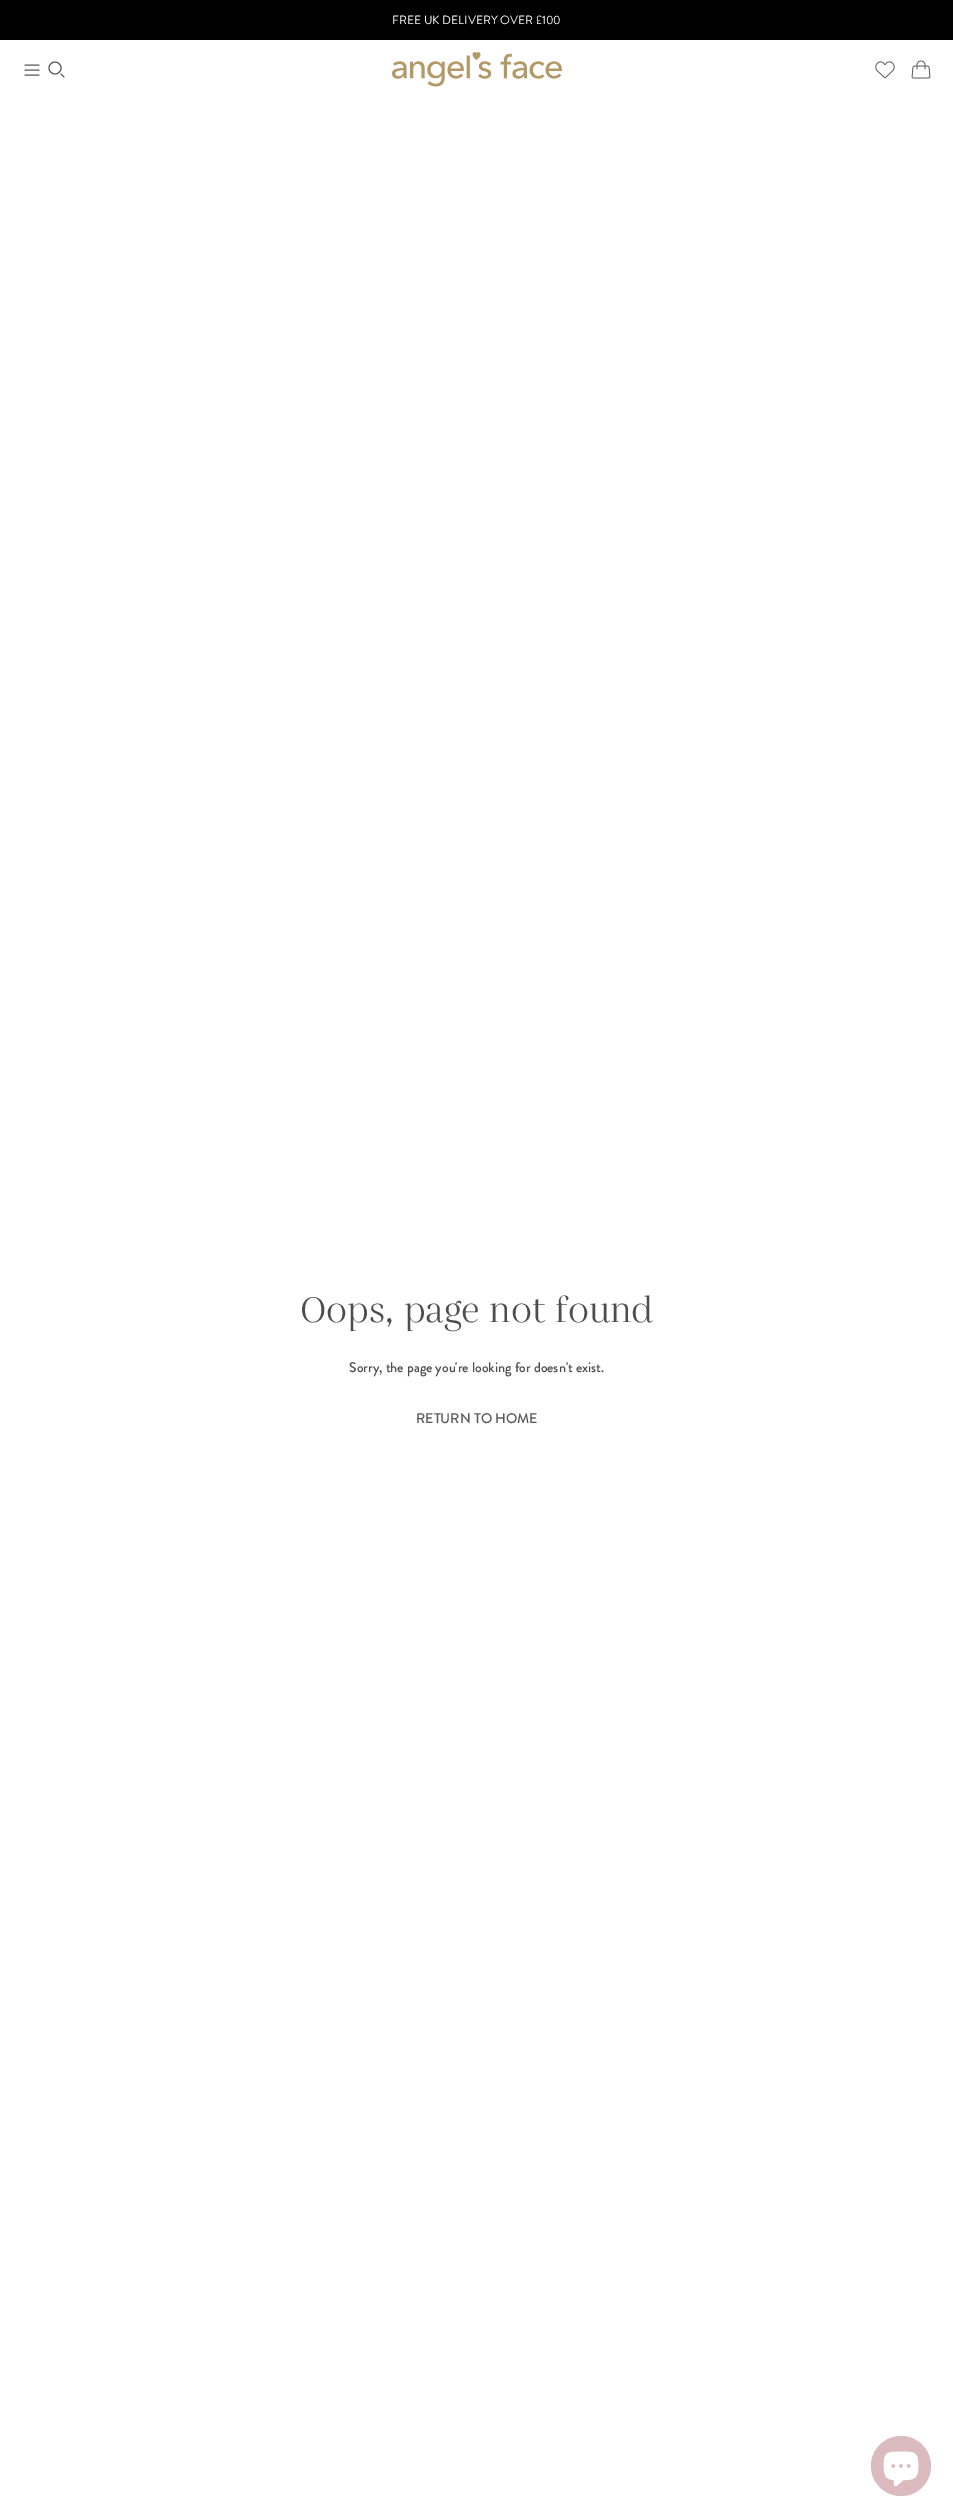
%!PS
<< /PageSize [953 2517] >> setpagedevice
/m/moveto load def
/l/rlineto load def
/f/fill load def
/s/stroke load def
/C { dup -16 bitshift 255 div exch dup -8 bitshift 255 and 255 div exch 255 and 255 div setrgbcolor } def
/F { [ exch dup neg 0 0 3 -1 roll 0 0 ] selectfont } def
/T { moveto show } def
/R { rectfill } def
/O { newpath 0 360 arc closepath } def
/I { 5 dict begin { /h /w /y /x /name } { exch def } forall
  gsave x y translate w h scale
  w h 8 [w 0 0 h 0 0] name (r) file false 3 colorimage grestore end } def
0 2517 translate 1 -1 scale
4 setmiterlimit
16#FFFFFF C
0 0 953 2517 R
16#000000 C
0 0 953 40 R
/BrandonGrotesque-Regular 12 F
16#FFFFFF C
(FREE UK DELIVERY OVER £100) 392 24 T
16#58585A C
1 setlinecap
25 65 m 14 0 l 25 70 m 14 0 l 25 75 m 14 0 l s
0 setlinecap
55 68 6 O s
1 setlinecap
64 77 m -3 -3 l s
(1.rgb) 392 52 170 35 I
(2.rgb) 875 61 20 18 I
(3.rgb) 911 60 20 19 I
/Gabriela-Regular 36 F
16#4D4D4D C
(Oops, page not found) 300 1322 T
/BrandonGrotesque-Medium 14 F
(Sorry, the page you're looking for doesn't exist.) 349 1372 T
16#58585A C
(RETURN TO HOME) 416 1423 T
16#DBBBBE C
901 2466 30 O f
(4.rgb) 883 2451 36 36 I
showpage
